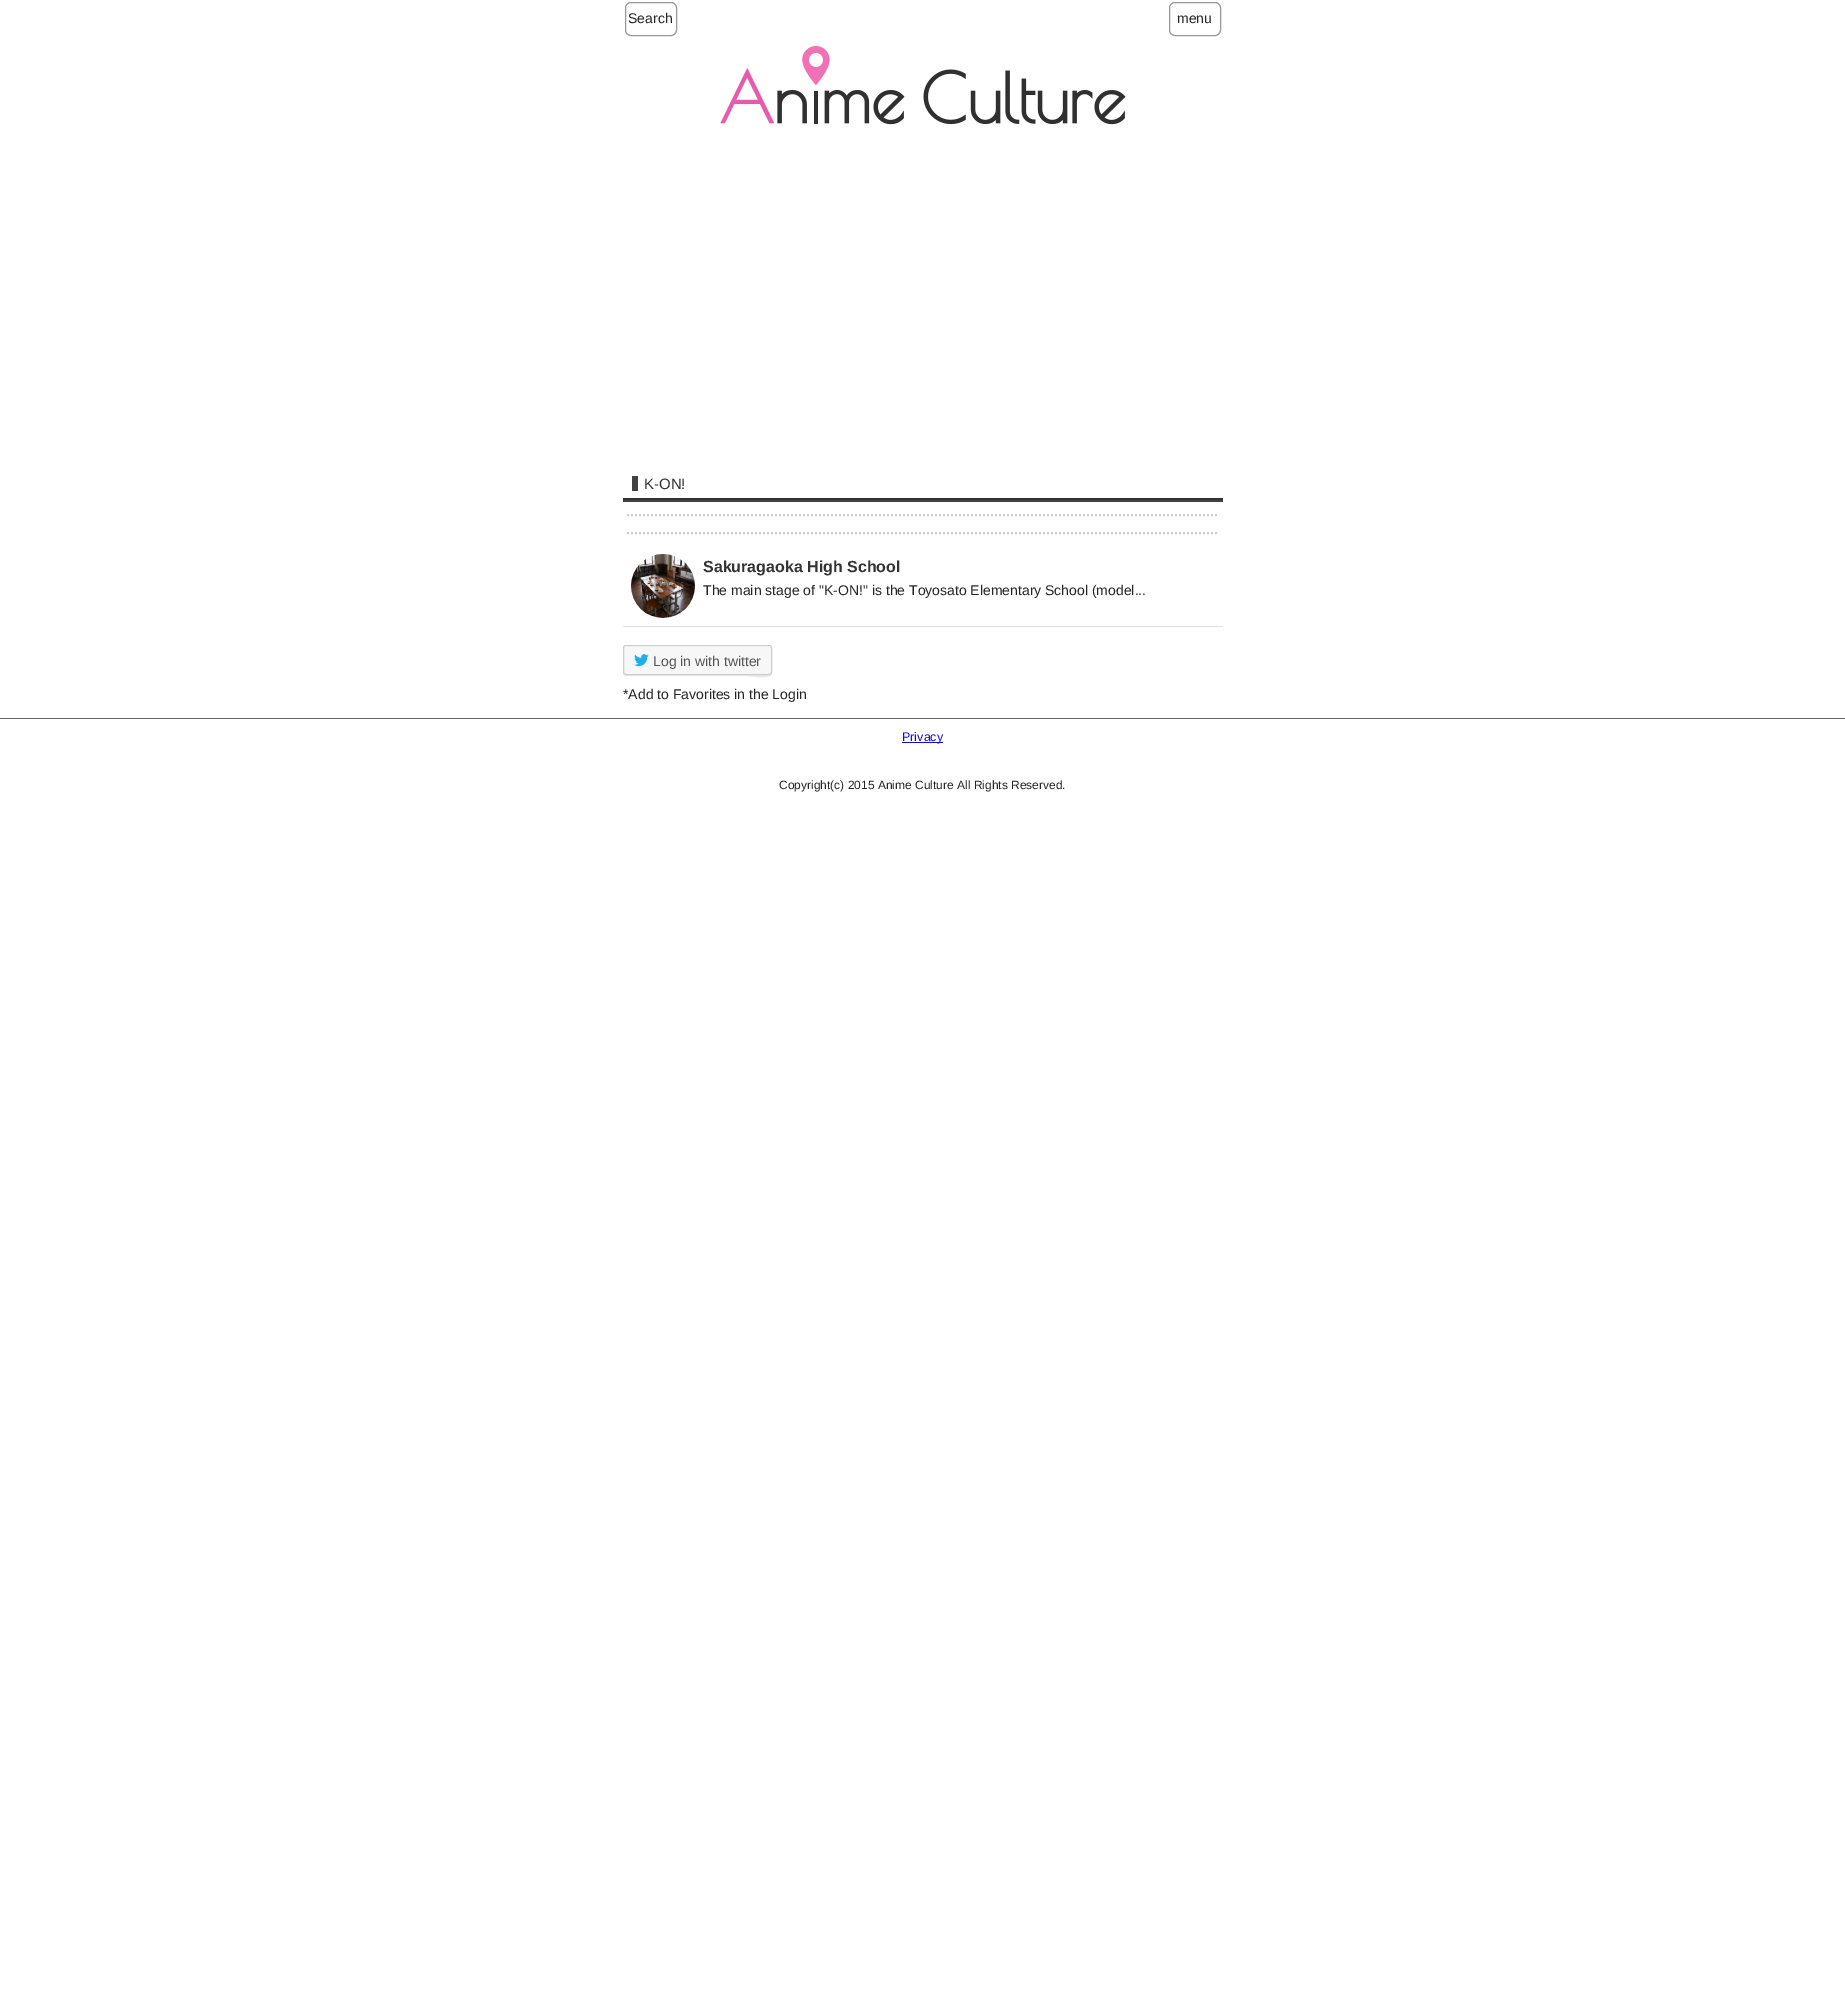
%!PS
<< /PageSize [1845 2012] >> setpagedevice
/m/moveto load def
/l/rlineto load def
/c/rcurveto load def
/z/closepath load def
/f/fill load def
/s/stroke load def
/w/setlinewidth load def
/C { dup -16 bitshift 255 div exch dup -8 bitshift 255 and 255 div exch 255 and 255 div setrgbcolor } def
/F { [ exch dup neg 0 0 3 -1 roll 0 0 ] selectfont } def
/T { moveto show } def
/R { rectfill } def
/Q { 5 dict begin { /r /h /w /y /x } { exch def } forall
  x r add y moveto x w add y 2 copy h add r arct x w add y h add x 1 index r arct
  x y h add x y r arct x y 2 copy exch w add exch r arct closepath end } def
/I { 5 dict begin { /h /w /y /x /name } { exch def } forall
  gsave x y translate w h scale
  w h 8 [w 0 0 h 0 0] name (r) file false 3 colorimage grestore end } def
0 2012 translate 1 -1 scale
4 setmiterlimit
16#FFFFFF C
0 0 1845 2012 R
16#999999 C
625.5 2.5 51 33 5.5 Q s
/LiberationSans-Regular 14 F
16#252525 C
(Search) 628 23 T
16#999999 C
1169.5 2.5 51 33 5.5 Q s
16#252525 C
(menu) 1177 23 T
(1.rgb) 720 46 406 79 I
(2.rgb) 623 476 600 24 I
16#424242 C
623 500 600 2 R
/LiberationSans-Regular 15 F
16#333333 C
(K-ON!) 644 489 T
16#CCCCCC C
2 w
[2 2] 0 setdash
627 515 m 592 0 l s
627 533 m 592 0 l s
16#E0E0E0 C
623 626 600 1 R
(3.rgb) 631 554 64 64 I
/LiberationSans-Bold 16 F
16#333333 C
(Sakuragaoka High School) 703 572 T
/LiberationSans-Regular 14 F
16#252525 C
(The main stage of "K-ON!" is the Toyosato Elementary School \(model...) 703 595 T
16#EBEBEB C
623 672 m 0 2 0 3 2 4 c 120 0 l 8 0 27 5 27 -4 c 0 2 -1 3 -3 3 c -143 0 l -2 0 -3 -1 -3 -3 c z f
16#F7F7F7 C
623 645 149 30 3 Q f
16#FFFFFF C
626 647 m 143 0 l 1 0 2 1 2 2 c 0 -1 0 -2 -1 -3 c -120 0 l -4 0 -26 -5 -26 3 c 0 -1 1 -2 2 -2 c z f
16#CCCCCC C
1 w
[] 0 setdash
623.5 645.5 148 29 2.5 Q s
(4.rgb) 634 654 15 13 I
16#555555 C
(Log in with twitter) 653 666 T
16#252525 C
(*Add to Favorites in the Login) 623 699 T
16#666666 C
0 718 1845 1 R
16#1111CC C
902 742 41 1 R
/LiberationSans-Regular 12.5 F
(Privacy) 902 741 T
/LiberationSans-Regular 12 F
16#252525 C
(Copyright\(c\) 2015 Anime Culture All Rights Reserved.) 779 789 T
showpage
